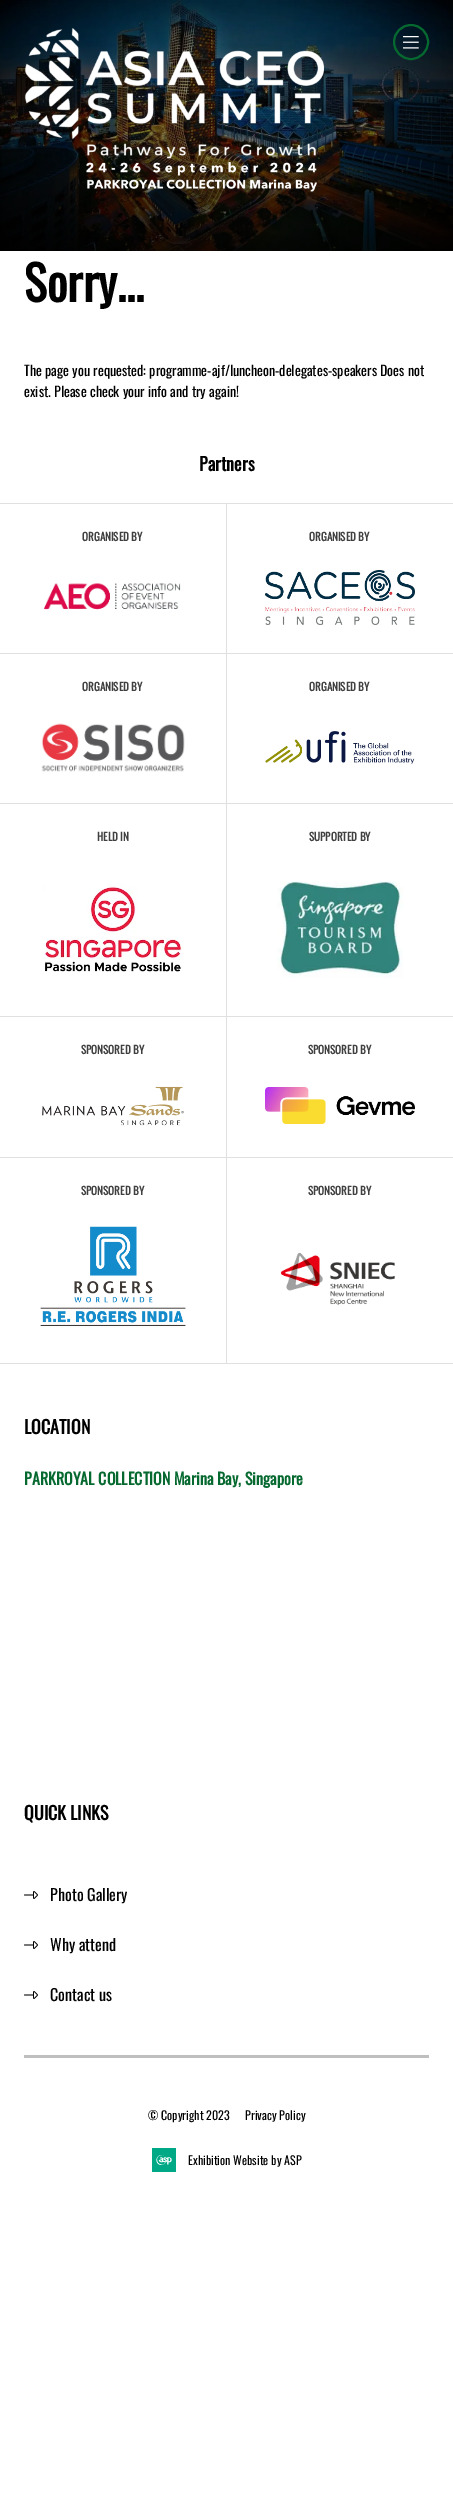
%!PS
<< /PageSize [453 2506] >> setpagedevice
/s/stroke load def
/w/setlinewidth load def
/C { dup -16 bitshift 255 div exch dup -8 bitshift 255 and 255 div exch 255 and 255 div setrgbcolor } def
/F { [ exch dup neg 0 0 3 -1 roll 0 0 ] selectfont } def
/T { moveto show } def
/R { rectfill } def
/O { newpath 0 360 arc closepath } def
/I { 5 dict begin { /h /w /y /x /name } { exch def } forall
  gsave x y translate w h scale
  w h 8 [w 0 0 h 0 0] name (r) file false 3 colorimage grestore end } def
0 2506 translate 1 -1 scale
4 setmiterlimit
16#FFFFFF C
0 0 453 2506 R
(1.rgb) 0 0 453 251 I
(2.rgb) 24 28 300 164 I
16#056930 C
2 w
411 42 17 O s
(3.rgb) 403 36 16 13 I
/Oswald-Bold 48 F
16#000000 C
(Sorry...) 24 302 T
/Oswald-Regular 14 F
(The page you requested: programme-ajf/luncheon-delegates-speakers Does not) 24 376 T
(exist. Please check your info and try again!) 24 397 T
/Oswald-Bold 18 F
(Partners) 199 471 T
16#E0E0E0 C
0 503 453 1 R
0 1363 453 1 R
226 504 1 149 R
/Oswald-Bold 11 F
16#404040 C
(ORGANISED BY) 82 541 T
(4.rgb) 44 583 137 27 I
(ORGANISED BY) 309 541 T
(5.rgb) 265 570 150 55 I
16#E0E0E0 C
0 653 453 1 R
226 653 1 150 R
16#404040 C
(ORGANISED BY) 82 691 T
(6.rgb) 41 723 144 49 I
(ORGANISED BY) 309 691 T
(7.rgb) 265 731 150 33 I
16#E0E0E0 C
0 803 453 1 R
226 803 1 213 R
16#404040 C
(HELD IN) 97 841 T
(8.rgb) 42 884 141 88 I
(SUPPORTED BY) 309 841 T
(9.rgb) 277 881 126 97 I
16#E0E0E0 C
0 1016 453 1 R
226 1016 1 141 R
16#404040 C
(SPONSORED BY) 81 1054 T
(10.rgb) 42 1086 142 40 I
(SPONSORED BY) 308 1054 T
(11.rgb) 265 1087 150 37 I
16#E0E0E0 C
0 1157 453 1 R
226 1157 1 206 R
16#404040 C
(SPONSORED BY) 81 1195 T
(12.rgb) 40 1226 146 100 I
(SPONSORED BY) 308 1195 T
(13.rgb) 280 1252 115 54 I
/Oswald-Bold 18 F
16#000000 C
(LOCATION) 24 1434 T
/Oswald-Bold 16 F
16#056930 C
(PARKROYAL COLLECTION Marina Bay, Singapore) 24 1485 T
/Oswald-Bold 18 F
16#000000 C
(QUICK LINKS) 24 1820 T
(14.rgb) 24 1891 14 8 I
/Oswald-Regular 16 F
(Photo Gallery) 50 1901 T
(14.rgb) 24 1941 14 8 I
(Why attend) 50 1951 T
(14.rgb) 24 1991 14 8 I
(Contact us) 50 2001 T
16#BFBFBF C
24 2055 405 3 R
/Oswald-Regular 12 F
16#000000 C
(© Copyright 2023) 148 2120 T
(Privacy Policy) 245 2120 T
(15.rgb) 152 2148 24 24 I
(Exhibition Website by ASP) 188 2165 T
showpage
